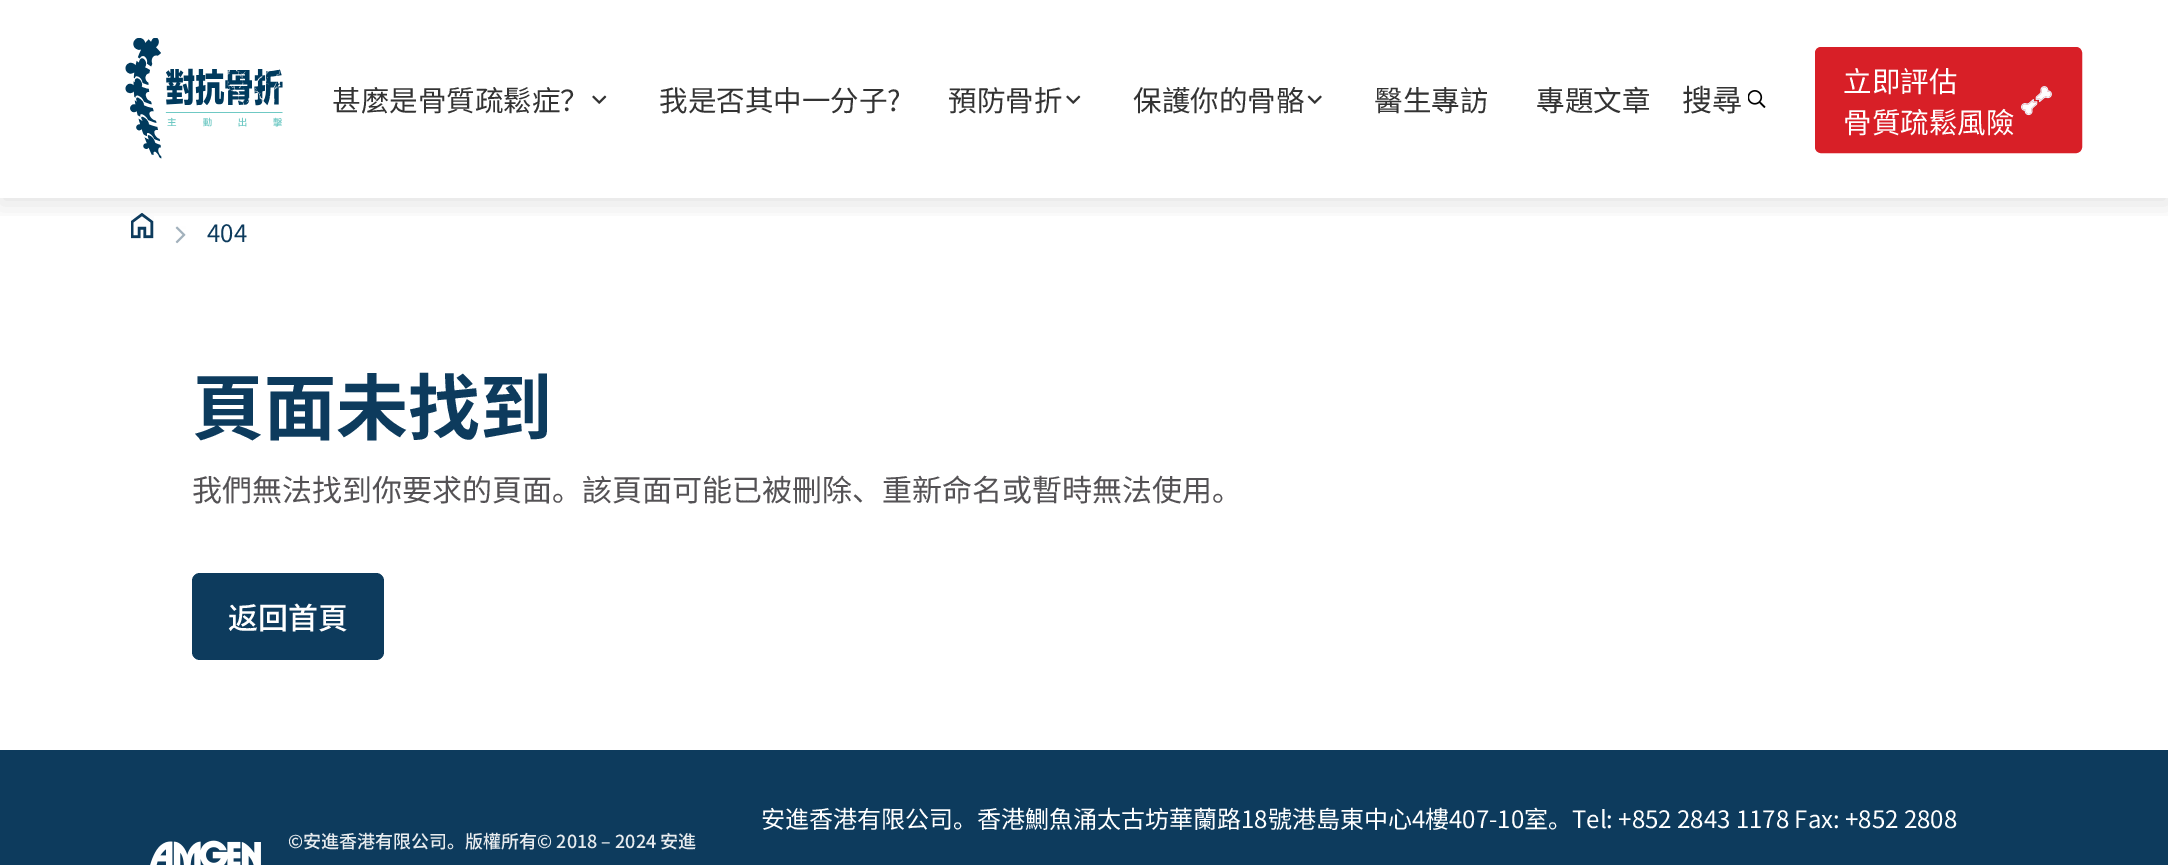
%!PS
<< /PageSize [2168 865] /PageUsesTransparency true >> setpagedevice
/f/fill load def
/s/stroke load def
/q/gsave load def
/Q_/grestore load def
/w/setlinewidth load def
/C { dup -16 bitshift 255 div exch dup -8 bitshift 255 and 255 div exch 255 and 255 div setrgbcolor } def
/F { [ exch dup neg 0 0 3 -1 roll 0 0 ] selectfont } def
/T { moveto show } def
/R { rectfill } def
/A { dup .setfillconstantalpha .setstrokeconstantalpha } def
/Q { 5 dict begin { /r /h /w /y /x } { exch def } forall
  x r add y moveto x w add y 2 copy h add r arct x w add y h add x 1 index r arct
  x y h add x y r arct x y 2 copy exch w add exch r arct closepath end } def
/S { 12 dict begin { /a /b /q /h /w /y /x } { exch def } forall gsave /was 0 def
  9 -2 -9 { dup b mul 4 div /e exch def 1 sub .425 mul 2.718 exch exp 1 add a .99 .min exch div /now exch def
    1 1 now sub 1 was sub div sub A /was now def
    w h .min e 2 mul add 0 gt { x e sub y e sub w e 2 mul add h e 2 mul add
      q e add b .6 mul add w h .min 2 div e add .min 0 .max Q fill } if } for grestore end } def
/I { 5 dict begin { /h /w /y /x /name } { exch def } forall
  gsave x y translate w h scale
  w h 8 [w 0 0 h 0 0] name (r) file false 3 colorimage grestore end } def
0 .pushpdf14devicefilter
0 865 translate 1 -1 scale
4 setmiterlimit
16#FFFFFF C
0 0 2168 865 R
q
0 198 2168 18 rectclip
16#1C1E21 C
0 6 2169 198 0 12 .12 S
Q_
(1.rgb) 125 38 158 121 I
/NotoSansSC-Regular 28.5 F
16#333333 C
(甚麼是骨質疏鬆症？) 332 111 T
(2.rgb) 592 95 15 9 I
(我是否其中一分子?) 659 111 T
(預防骨折) 948 111 T
(2.rgb) 1066 95 15 9 I
(保護你的骨骼) 1133 111 T
(3.rgb) 1307 95 15 9 I
(醫生專訪) 1374 111 T
(專題文章) 1536 111 T
16#D81F27 C
1816 48 265 104 5 Q q f Q_
2 w
s
16#FFFFFF C
(立即評估) 1843 92 T
(4.rgb) 2021 86 31 30 I
(骨質疏鬆風險) 1843 133 T
/NotoSansSC-Regular 30 F
16#333333 C
(搜尋) 1682 111 T
(5.rgb) 1748 90 18 18 I
(6.rgb) 131 213 23 26 I
(7.rgb) 175 226 11 18 I
/NotoSansSC-Regular 24 F
16#0D3B5D C
(404) 207 242 T
/NotoSansSC-Bold 72 F
(頁面未找到) 192 434 T
/NotoSansSC-Regular 30 F
16#545255 C
(我們無法找到你要求的頁面。該頁面可能已被刪除、重新命名或暫時無法使用。) 192 501 T
16#0D3B5D C
192 573 192 87 8 Q f
/NotoSansSC-Medium 30 F
16#FFFFFF C
(返回首頁) 228 629 T
16#0D3B5D C
0 750 2168 115 R
/NotoSansSC-Regular 24 F
16#FFFFFF C
(安進香港有限公司。香港鰂魚涌太古坊華蘭路18號港島東中心4樓407-10室。Tel: +852 2843 1178 Fax: +852 2808) 761 828 T
(8.rgb) 150 840 111 25 I
/NotoSansSC-Medium 18 F
16#E7EBEE C
(©安進香港有限公司。版權所有© 2018 – 2024 安進) 288 848 T
.poppdf14devicefilter showpage
